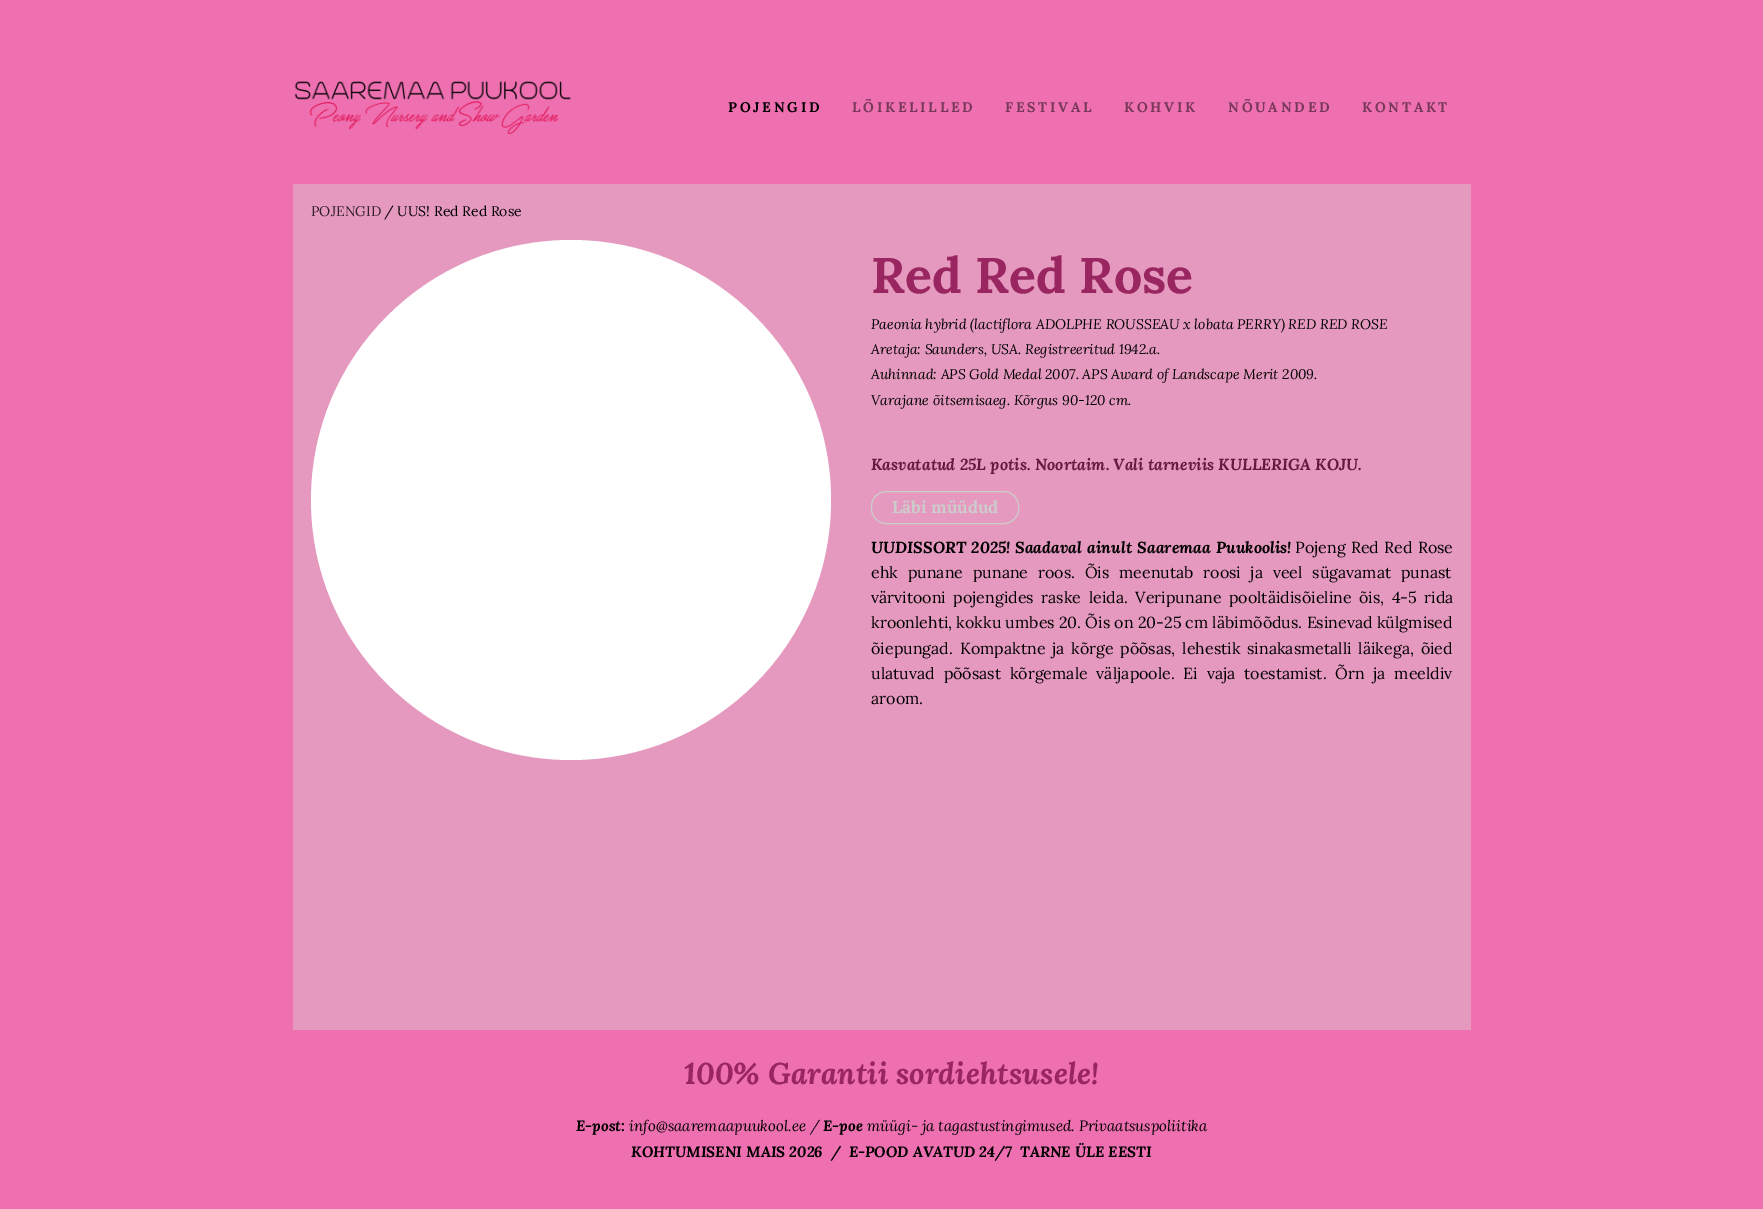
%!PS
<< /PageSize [1763 1209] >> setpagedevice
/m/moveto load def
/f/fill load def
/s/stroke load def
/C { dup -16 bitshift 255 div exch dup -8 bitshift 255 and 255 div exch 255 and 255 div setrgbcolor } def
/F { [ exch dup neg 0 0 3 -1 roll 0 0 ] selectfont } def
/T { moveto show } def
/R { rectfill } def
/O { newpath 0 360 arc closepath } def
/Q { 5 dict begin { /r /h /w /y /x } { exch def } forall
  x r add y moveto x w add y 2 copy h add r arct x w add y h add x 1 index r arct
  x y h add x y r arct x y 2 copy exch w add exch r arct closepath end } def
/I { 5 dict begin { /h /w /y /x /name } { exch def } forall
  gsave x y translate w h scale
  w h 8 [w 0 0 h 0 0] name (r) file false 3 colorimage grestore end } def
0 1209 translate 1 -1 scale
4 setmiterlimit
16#EE70B1 C
0 0 1763 1209 R
(1.rgb) 294 81 277 53 I
/Lora-Bold 14 F
16#000000 C
728 112 m 2.75 0 (POJENGID) ashow
16#773859 C
852 112 m 2.75 0 (LÕIKELILLED) ashow
1005 112 m 2.75 0 (FESTIVAL) ashow
1124 112 m 2.75 0 (KOHVIK) ashow
1228 112 m 2.75 0 (NÕUANDED) ashow
1362 112 m 2.75 0 (KONTAKT) ashow
16#E699BF C
293 184 1178 846 R
/Lora-Regular 14 F
16#2E1F26 C
(POJENGID) 311 216 T
16#000000 C
(/ UUS! Red Red Rose) 384 216 T
16#FFFFFF C
571 500 260 O f
/Lora-Bold 50 F
16#992660 C
(Red Red Rose) 871 293 T
/Lora-Italic 14 F
16#000000 C
(Paeonia hybrid \(lactiflora ADOLPHE ROUSSEAU x lobata PERRY\) RED RED ROSE) 871 329 T
(Aretaja: Saunders, USA. Registreeritud 1942.a.) 871 354 T
(Auhinnad: APS Gold Medal 2007. APS Award of Landscape Merit 2009.) 871 379 T
(Varajane õitsemisaeg. Kõrgus 90-120 cm.) 871 405 T
/Lora-BoldItalic 16 F
16#661A40 C
(Kasvatatud 25L potis. Noortaim. Vali tarneviis KULLERIGA KOJU.) 871 470 T
16#CCCCCC C
871.5 491.5 147 32 14.5 Q s
/Lora-Bold 17 F
(Läbi müüdud) 892 513 T
/Lora-BoldItalic 16 F
16#000000 C
871 553 m 1 0 32 (UUDISSORT 2025!) widthshow
1015 553 m 1 0 32 (Saadaval ainult Saaremaa Puukoolis!) widthshow
/Lora-Regular 16 F
1295 553 m 1 0 32 (Pojeng Red Red Rose) widthshow
871 578 m 5.5 0 32 (ehk punane punane roos. Õis meenutab roosi ja veel sügavamat punast) widthshow
871 603 m 3.25 0 32 (värvitooni pojengides raske leida. Veripunane pooltäidisõieline õis, 4-5 rida) widthshow
(kroonlehti, kokku umbes 20. Õis on 20-25 cm läbimõõdus. Esinevad külgmised) 871 628 T
871 654 m 2.5 0 32 (õiepungad. Kompaktne ja kõrge põõsas, lehestik sinakasmetalli läikega, õied) widthshow
871 679 m 4.5 0 32 (ulatuvad põõsast kõrgemale väljapoole. Ei vaja toestamist. Õrn ja meeldiv) widthshow
(aroom.) 871 704 T
/Lora-BoldItalic 30 F
16#992660 C
(100% Garantii sordiehtsusele!) 684 1084 T
/Lora-BoldItalic 15 F
16#000000 C
(E-post:) 576 1131 T
/Lora-Italic 15 F
(info@saaremaapuukool.ee /) 629 1131 T
/Lora-BoldItalic 15 F
(E-poe) 823 1131 T
/Lora-Italic 15 F
(müügi- ja tagastustingimused. Privaatsuspoliitika) 867 1131 T
/Lora-BoldItalic 15 F
(KOHTUMISENI MAIS 2026  /  E-POOD AVATUD 24/7  TARNE ÜLE EESTI) 631 1157 T
showpage
